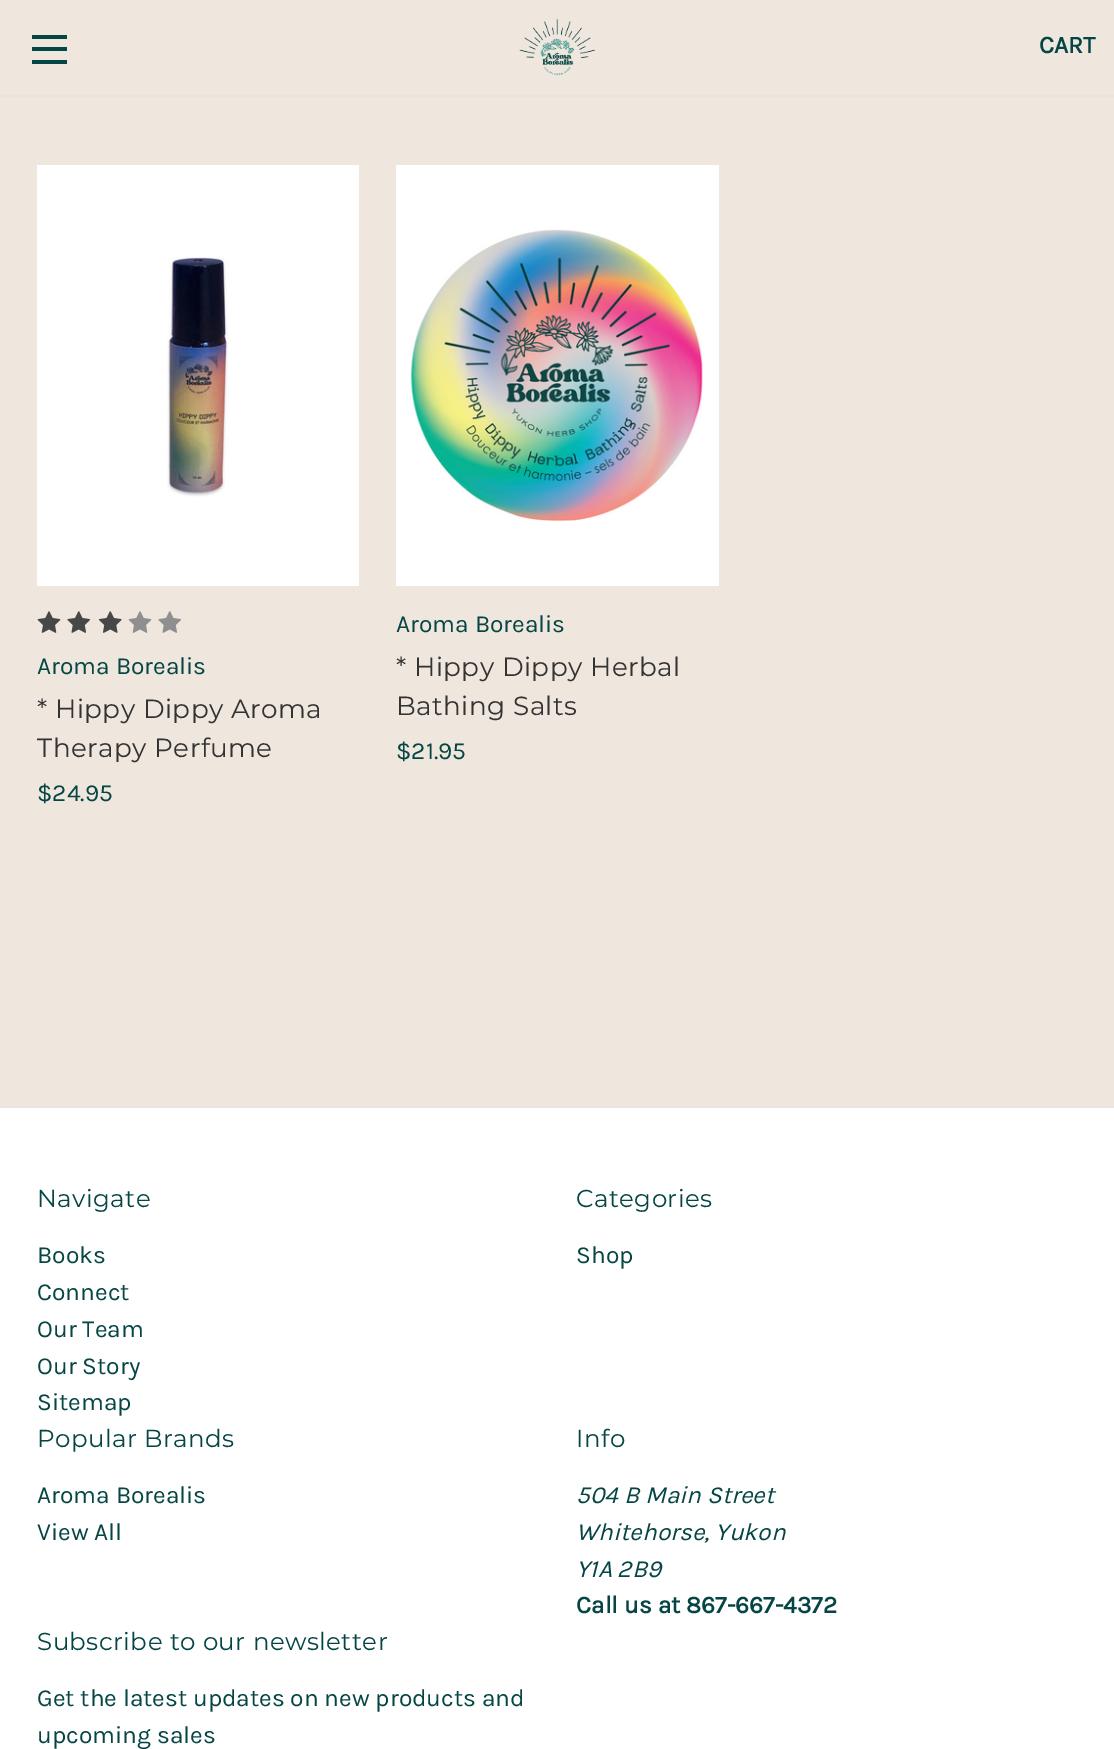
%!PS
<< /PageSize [1114 1749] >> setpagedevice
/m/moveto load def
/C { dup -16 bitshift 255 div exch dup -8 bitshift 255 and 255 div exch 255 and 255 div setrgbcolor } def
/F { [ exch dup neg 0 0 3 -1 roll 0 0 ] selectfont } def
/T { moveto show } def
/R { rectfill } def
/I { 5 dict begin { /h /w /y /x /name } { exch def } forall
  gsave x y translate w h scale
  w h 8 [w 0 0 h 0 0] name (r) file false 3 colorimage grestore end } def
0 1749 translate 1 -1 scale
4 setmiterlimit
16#EFE6DD C
0 0 1114 1749 R
16#E5E5E5 C
0 95 1114 2 R
16#054644 C
32 47 35 4 R
32 35 35 4 R
32 60 35 4 R
(1.rgb) 519 19 76 57 I
/Karla-Bold 24.5 F
(CART) 1039 53 T
16#FFFFFF C
37 165 322 421 R
(2.rgb) 167 257 62 240 I
(3.rgb) 37 611 24 22 I
(4.rgb) 67 611 24 22 I
(5.rgb) 98 611 24 22 I
(6.rgb) 128 611 24 22 I
(7.rgb) 158 611 23 22 I
/Karla-Regular 24.5 F
16#054644 C
(Aroma Borealis) 37 674 T
/Montserrat-Regular 26.25 F
16#333333 C
37 718 m .45 0 (* Hippy Dippy Aroma) ashow
37 757 m .45 0 (Therapy Perfume) ashow
/Karla-Regular 24.5 F
16#054644 C
($24.95) 37 801 T
16#FFFFFF C
396 165 323 421 R
(8.rgb) 410 229 293 292 I
16#054644 C
(Aroma Borealis) 396 632 T
/Montserrat-Regular 26.25 F
16#333333 C
396 676 m .45 0 (* Hippy Dippy Herbal) ashow
396 715 m .45 0 (Bathing Salts) ashow
/Karla-Regular 24.5 F
16#054644 C
($21.95) 396 759 T
16#FFFFFF C
0 1108 1114 641 R
16#E5E5E5 C
0 1106 1114 2 R
/Montserrat-Regular 24.5 F
16#054644 C
37 1207 m .45 0 (Navigate) ashow
/Karla-Regular 24.5 F
(Books) 37 1263 T
(Connect) 37 1300 T
(Our Team) 37 1337 T
(Our Story) 37 1374 T
(Sitemap) 37 1410 T
/Montserrat-Regular 24.5 F
576 1207 m .45 0 (Categories) ashow
/Karla-Regular 24.5 F
(Shop) 576 1263 T
/Montserrat-Regular 24.5 F
37 1447 m .45 0 (Popular Brands) ashow
/Karla-Regular 24.5 F
(Aroma Borealis) 37 1503 T
(View All) 37 1540 T
/Montserrat-Regular 24.5 F
576 1447 m .45 0 (Info) ashow
/Karla-Italic 24.5 F
(504 B Main Street) 576 1503 T
(Whitehorse, Yukon) 576 1540 T
(Y1A 2B9) 576 1577 T
/Karla-Bold 24.5 F
(Call us at 867-667-4372) 576 1613 T
/Montserrat-Regular 24.5 F
37 1650 m .45 0 (Subscribe to our newsletter) ashow
/Karla-Regular 24.5 F
(Get the latest updates on new products and) 37 1706 T
(upcoming sales) 37 1743 T
showpage
